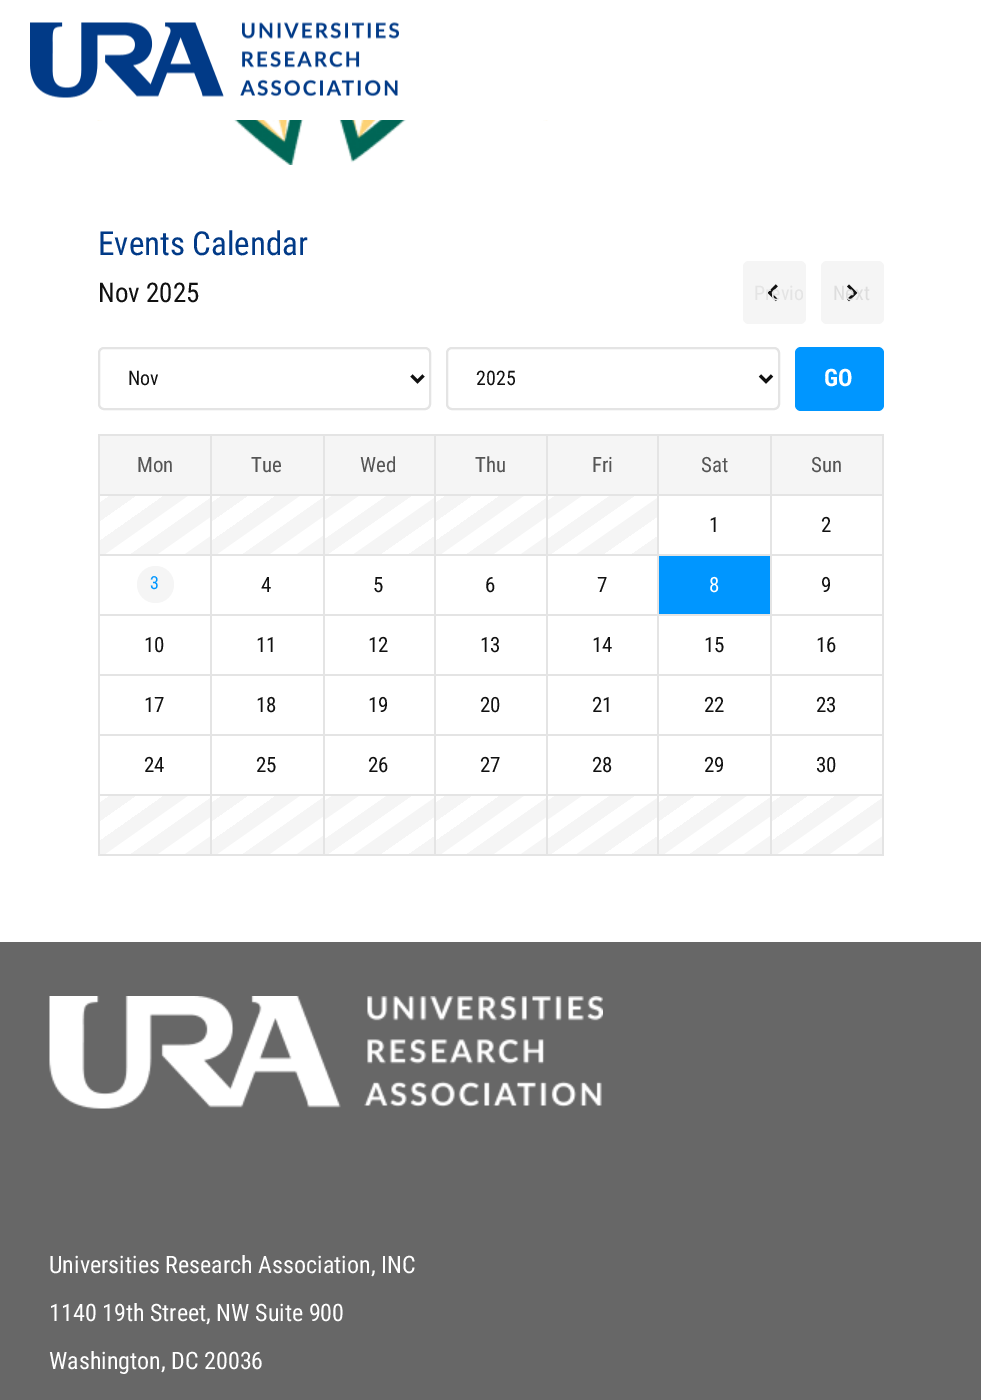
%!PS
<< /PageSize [981 1400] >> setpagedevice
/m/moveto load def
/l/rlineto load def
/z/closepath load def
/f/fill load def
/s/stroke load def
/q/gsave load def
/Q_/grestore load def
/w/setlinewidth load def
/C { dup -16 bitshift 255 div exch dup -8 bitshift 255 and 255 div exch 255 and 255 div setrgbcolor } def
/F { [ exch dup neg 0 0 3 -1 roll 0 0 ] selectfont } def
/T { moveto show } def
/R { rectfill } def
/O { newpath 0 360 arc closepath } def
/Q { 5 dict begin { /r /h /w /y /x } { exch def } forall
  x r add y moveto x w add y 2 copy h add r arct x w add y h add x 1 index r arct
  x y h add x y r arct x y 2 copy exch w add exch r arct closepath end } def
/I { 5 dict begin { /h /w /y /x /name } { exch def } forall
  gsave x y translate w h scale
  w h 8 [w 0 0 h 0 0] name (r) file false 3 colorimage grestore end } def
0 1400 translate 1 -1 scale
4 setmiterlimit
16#FFFFFF C
0 0 981 1400 R
(1.rgb) 30 22 369 76 I
(2.rgb) 97 120 451 45 I
/RobotoCondensed-Regular 33 F
16#013A87 C
(Events Calendar) 98 255 T
/RobotoCondensed-Regular 27 F
16#111111 C
(Nov 2025) 98 302 T
16#F5F5F5 C
743 261 63 63 6 Q f
(3.rgb) 767 284 11 18 I
/RobotoCondensed-Regular 20 F
16#E4E4E4 C
(Previo) 754 300 T
16#F5F5F5 C
821 261 63 63 6 Q f
(4.rgb) 847 284 11 18 I
16#DDDDDD C
(Next) 833 300 T
16#E4E4E4 C
2 w
99 348 331 61 5 Q s
16#111111 C
3 w
411.5 375.5 m 6 6 l 6 -6 l s
(Nov) 128 385 T
16#E4E4E4 C
2 w
447 348 332 61 5 Q s
16#111111 C
3 w
760 375.5 m 6 6 l 6 -6 l s
(2025) 476 385 T
16#0096FF C
795 347 89 64 6 Q f
/RobotoCondensed-Bold 24 F
16#FFFFFF C
(GO) 824 386 T
16#E4E4E4 C
882 434 2 421 R
98 854 786 2 R
16#F5F5F5 C
100 436 110 58 R
16#E4E4E4 C
98 434 784 2 R
98 434 2 60 R
/RobotoCondensed-Regular 21 F
16#555555 C
(Mon) 137 472 T
16#F5F5F5 C
212 436 111 58 R
16#E4E4E4 C
210 434 2 60 R
16#555555 C
(Tue) 251 472 T
16#F5F5F5 C
325 436 109 58 R
16#E4E4E4 C
323 434 2 60 R
16#555555 C
(Wed) 360 472 T
16#F5F5F5 C
436 436 110 58 R
16#E4E4E4 C
434 434 2 60 R
16#555555 C
(Thu) 475 472 T
16#F5F5F5 C
548 436 109 58 R
16#E4E4E4 C
546 434 2 60 R
16#555555 C
(Fri) 592 472 T
16#F5F5F5 C
659 436 111 58 R
16#E4E4E4 C
657 434 2 60 R
16#555555 C
(Sat) 701 472 T
16#F5F5F5 C
772 436 110 58 R
16#E4E4E4 C
770 434 2 60 R
16#555555 C
(Sun) 811 472 T
q 100 496 m 110 0 l 0 58 l -110 0 l z clip newpath
<< /ShadingType 2 /ColorSpace /DeviceRGB /Coords [187 570 118 472] /Extend [true true] /Function << /FunctionType 3 /Domain [0 1] /Functions [<< /FunctionType 2 /Domain [0 1] /C0 [.961 .961 .961] /C1 [.961 .961 .961] /N 1 >> << /FunctionType 2 /Domain [0 1] /C0 [1 1 1] /C1 [1 1 1] /N 1 >> << /FunctionType 2 /Domain [0 1] /C0 [.961 .961 .961] /C1 [.961 .961 .961] /N 1 >> << /FunctionType 2 /Domain [0 1] /C0 [1 1 1] /C1 [1 1 1] /N 1 >> << /FunctionType 2 /Domain [0 1] /C0 [.961 .961 .961] /C1 [.961 .961 .961] /N 1 >> << /FunctionType 2 /Domain [0 1] /C0 [1 1 1] /C1 [1 1 1] /N 1 >> << /FunctionType 2 /Domain [0 1] /C0 [.961 .961 .961] /C1 [.961 .961 .961] /N 1 >> << /FunctionType 2 /Domain [0 1] /C0 [1 1 1] /C1 [1 1 1] /N 1 >>] /Bounds [.12 .25 .38 .5 .62 .75 .88] /Encode [0 1 0 1 0 1 0 1 0 1 0 1 0 1 0 1] >> >> shfill Q_
16#E4E4E4 C
98 494 784 2 R
98 494 2 60 R
q 212 496 m 111 0 l 0 58 l -111 0 l z clip newpath
<< /ShadingType 2 /ColorSpace /DeviceRGB /Coords [299 570 230 472] /Extend [true true] /Function << /FunctionType 3 /Domain [0 1] /Functions [<< /FunctionType 2 /Domain [0 1] /C0 [.961 .961 .961] /C1 [.961 .961 .961] /N 1 >> << /FunctionType 2 /Domain [0 1] /C0 [1 1 1] /C1 [1 1 1] /N 1 >> << /FunctionType 2 /Domain [0 1] /C0 [.961 .961 .961] /C1 [.961 .961 .961] /N 1 >> << /FunctionType 2 /Domain [0 1] /C0 [1 1 1] /C1 [1 1 1] /N 1 >> << /FunctionType 2 /Domain [0 1] /C0 [.961 .961 .961] /C1 [.961 .961 .961] /N 1 >> << /FunctionType 2 /Domain [0 1] /C0 [1 1 1] /C1 [1 1 1] /N 1 >> << /FunctionType 2 /Domain [0 1] /C0 [.961 .961 .961] /C1 [.961 .961 .961] /N 1 >> << /FunctionType 2 /Domain [0 1] /C0 [1 1 1] /C1 [1 1 1] /N 1 >>] /Bounds [.12 .25 .38 .5 .62 .75 .88] /Encode [0 1 0 1 0 1 0 1 0 1 0 1 0 1 0 1] >> >> shfill Q_
210 494 2 60 R
q 325 496 m 109 0 l 0 58 l -109 0 l z clip newpath
<< /ShadingType 2 /ColorSpace /DeviceRGB /Coords [411 570 342 471] /Extend [true true] /Function << /FunctionType 3 /Domain [0 1] /Functions [<< /FunctionType 2 /Domain [0 1] /C0 [.961 .961 .961] /C1 [.961 .961 .961] /N 1 >> << /FunctionType 2 /Domain [0 1] /C0 [1 1 1] /C1 [1 1 1] /N 1 >> << /FunctionType 2 /Domain [0 1] /C0 [.961 .961 .961] /C1 [.961 .961 .961] /N 1 >> << /FunctionType 2 /Domain [0 1] /C0 [1 1 1] /C1 [1 1 1] /N 1 >> << /FunctionType 2 /Domain [0 1] /C0 [.961 .961 .961] /C1 [.961 .961 .961] /N 1 >> << /FunctionType 2 /Domain [0 1] /C0 [1 1 1] /C1 [1 1 1] /N 1 >> << /FunctionType 2 /Domain [0 1] /C0 [.961 .961 .961] /C1 [.961 .961 .961] /N 1 >> << /FunctionType 2 /Domain [0 1] /C0 [1 1 1] /C1 [1 1 1] /N 1 >>] /Bounds [.12 .25 .38 .5 .62 .75 .88] /Encode [0 1 0 1 0 1 0 1 0 1 0 1 0 1 0 1] >> >> shfill Q_
323 494 2 60 R
q 436 496 m 110 0 l 0 58 l -110 0 l z clip newpath
<< /ShadingType 2 /ColorSpace /DeviceRGB /Coords [523 570 454 472] /Extend [true true] /Function << /FunctionType 3 /Domain [0 1] /Functions [<< /FunctionType 2 /Domain [0 1] /C0 [.961 .961 .961] /C1 [.961 .961 .961] /N 1 >> << /FunctionType 2 /Domain [0 1] /C0 [1 1 1] /C1 [1 1 1] /N 1 >> << /FunctionType 2 /Domain [0 1] /C0 [.961 .961 .961] /C1 [.961 .961 .961] /N 1 >> << /FunctionType 2 /Domain [0 1] /C0 [1 1 1] /C1 [1 1 1] /N 1 >> << /FunctionType 2 /Domain [0 1] /C0 [.961 .961 .961] /C1 [.961 .961 .961] /N 1 >> << /FunctionType 2 /Domain [0 1] /C0 [1 1 1] /C1 [1 1 1] /N 1 >> << /FunctionType 2 /Domain [0 1] /C0 [.961 .961 .961] /C1 [.961 .961 .961] /N 1 >> << /FunctionType 2 /Domain [0 1] /C0 [1 1 1] /C1 [1 1 1] /N 1 >>] /Bounds [.12 .25 .38 .5 .62 .75 .88] /Encode [0 1 0 1 0 1 0 1 0 1 0 1 0 1 0 1] >> >> shfill Q_
434 494 2 60 R
q 548 496 m 109 0 l 0 58 l -109 0 l z clip newpath
<< /ShadingType 2 /ColorSpace /DeviceRGB /Coords [634 570 565 471] /Extend [true true] /Function << /FunctionType 3 /Domain [0 1] /Functions [<< /FunctionType 2 /Domain [0 1] /C0 [.961 .961 .961] /C1 [.961 .961 .961] /N 1 >> << /FunctionType 2 /Domain [0 1] /C0 [1 1 1] /C1 [1 1 1] /N 1 >> << /FunctionType 2 /Domain [0 1] /C0 [.961 .961 .961] /C1 [.961 .961 .961] /N 1 >> << /FunctionType 2 /Domain [0 1] /C0 [1 1 1] /C1 [1 1 1] /N 1 >> << /FunctionType 2 /Domain [0 1] /C0 [.961 .961 .961] /C1 [.961 .961 .961] /N 1 >> << /FunctionType 2 /Domain [0 1] /C0 [1 1 1] /C1 [1 1 1] /N 1 >> << /FunctionType 2 /Domain [0 1] /C0 [.961 .961 .961] /C1 [.961 .961 .961] /N 1 >> << /FunctionType 2 /Domain [0 1] /C0 [1 1 1] /C1 [1 1 1] /N 1 >>] /Bounds [.12 .25 .38 .5 .62 .75 .88] /Encode [0 1 0 1 0 1 0 1 0 1 0 1 0 1 0 1] >> >> shfill Q_
546 494 2 60 R
657 494 2 60 R
16#111111 C
(1) 709 532 T
16#E4E4E4 C
770 494 2 60 R
16#111111 C
(2) 821 532 T
16#E4E4E4 C
98 554 784 2 R
98 554 2 60 R
16#F5F5F5 C
155.5 584.5 18.5 O f
/RobotoCondensed-Regular 18 F
16#0096FF C
(3) 150 589 T
16#E4E4E4 C
210 554 2 60 R
/RobotoCondensed-Regular 21 F
16#111111 C
(4) 261 592 T
16#E4E4E4 C
323 554 2 60 R
16#111111 C
(5) 373 592 T
16#E4E4E4 C
434 554 2 60 R
16#111111 C
(6) 485 592 T
16#E4E4E4 C
546 554 2 60 R
16#111111 C
(7) 597 592 T
16#0096FF C
659 556 111 58 R
16#E4E4E4 C
657 554 2 60 R
16#FFFFFF C
(8) 709 592 T
16#E4E4E4 C
770 554 2 60 R
16#111111 C
(9) 821 592 T
16#E4E4E4 C
98 614 784 2 R
98 614 2 60 R
16#111111 C
(10) 144 652 T
16#E4E4E4 C
210 614 2 60 R
16#111111 C
(11) 256 652 T
16#E4E4E4 C
323 614 2 60 R
16#111111 C
(12) 368 652 T
16#E4E4E4 C
434 614 2 60 R
16#111111 C
(13) 480 652 T
16#E4E4E4 C
546 614 2 60 R
16#111111 C
(14) 592 652 T
16#E4E4E4 C
657 614 2 60 R
16#111111 C
(15) 704 652 T
16#E4E4E4 C
770 614 2 60 R
16#111111 C
(16) 816 652 T
16#E4E4E4 C
98 674 784 2 R
98 674 2 60 R
16#111111 C
(17) 144 712 T
16#E4E4E4 C
210 674 2 60 R
16#111111 C
(18) 256 712 T
16#E4E4E4 C
323 674 2 60 R
16#111111 C
(19) 368 712 T
16#E4E4E4 C
434 674 2 60 R
16#111111 C
(20) 480 712 T
16#E4E4E4 C
546 674 2 60 R
16#111111 C
(21) 592 712 T
16#E4E4E4 C
657 674 2 60 R
16#111111 C
(22) 704 712 T
16#E4E4E4 C
770 674 2 60 R
16#111111 C
(23) 816 712 T
16#E4E4E4 C
98 734 784 2 R
98 734 2 60 R
16#111111 C
(24) 144 772 T
16#E4E4E4 C
210 734 2 60 R
16#111111 C
(25) 256 772 T
16#E4E4E4 C
323 734 2 60 R
16#111111 C
(26) 368 772 T
16#E4E4E4 C
434 734 2 60 R
16#111111 C
(27) 480 772 T
16#E4E4E4 C
546 734 2 60 R
16#111111 C
(28) 592 772 T
16#E4E4E4 C
657 734 2 60 R
16#111111 C
(29) 704 772 T
16#E4E4E4 C
770 734 2 60 R
16#111111 C
(30) 816 772 T
q 100 796 m 110 0 l 0 58 l -110 0 l z clip newpath
<< /ShadingType 2 /ColorSpace /DeviceRGB /Coords [187 870 118 772] /Extend [true true] /Function << /FunctionType 3 /Domain [0 1] /Functions [<< /FunctionType 2 /Domain [0 1] /C0 [.961 .961 .961] /C1 [.961 .961 .961] /N 1 >> << /FunctionType 2 /Domain [0 1] /C0 [1 1 1] /C1 [1 1 1] /N 1 >> << /FunctionType 2 /Domain [0 1] /C0 [.961 .961 .961] /C1 [.961 .961 .961] /N 1 >> << /FunctionType 2 /Domain [0 1] /C0 [1 1 1] /C1 [1 1 1] /N 1 >> << /FunctionType 2 /Domain [0 1] /C0 [.961 .961 .961] /C1 [.961 .961 .961] /N 1 >> << /FunctionType 2 /Domain [0 1] /C0 [1 1 1] /C1 [1 1 1] /N 1 >> << /FunctionType 2 /Domain [0 1] /C0 [.961 .961 .961] /C1 [.961 .961 .961] /N 1 >> << /FunctionType 2 /Domain [0 1] /C0 [1 1 1] /C1 [1 1 1] /N 1 >>] /Bounds [.12 .25 .38 .5 .62 .75 .88] /Encode [0 1 0 1 0 1 0 1 0 1 0 1 0 1 0 1] >> >> shfill Q_
16#E4E4E4 C
98 794 784 2 R
98 794 2 60 R
q 212 796 m 111 0 l 0 58 l -111 0 l z clip newpath
<< /ShadingType 2 /ColorSpace /DeviceRGB /Coords [299 870 230 772] /Extend [true true] /Function << /FunctionType 3 /Domain [0 1] /Functions [<< /FunctionType 2 /Domain [0 1] /C0 [.961 .961 .961] /C1 [.961 .961 .961] /N 1 >> << /FunctionType 2 /Domain [0 1] /C0 [1 1 1] /C1 [1 1 1] /N 1 >> << /FunctionType 2 /Domain [0 1] /C0 [.961 .961 .961] /C1 [.961 .961 .961] /N 1 >> << /FunctionType 2 /Domain [0 1] /C0 [1 1 1] /C1 [1 1 1] /N 1 >> << /FunctionType 2 /Domain [0 1] /C0 [.961 .961 .961] /C1 [.961 .961 .961] /N 1 >> << /FunctionType 2 /Domain [0 1] /C0 [1 1 1] /C1 [1 1 1] /N 1 >> << /FunctionType 2 /Domain [0 1] /C0 [.961 .961 .961] /C1 [.961 .961 .961] /N 1 >> << /FunctionType 2 /Domain [0 1] /C0 [1 1 1] /C1 [1 1 1] /N 1 >>] /Bounds [.12 .25 .38 .5 .62 .75 .88] /Encode [0 1 0 1 0 1 0 1 0 1 0 1 0 1 0 1] >> >> shfill Q_
210 794 2 60 R
q 325 796 m 109 0 l 0 58 l -109 0 l z clip newpath
<< /ShadingType 2 /ColorSpace /DeviceRGB /Coords [411 870 342 771] /Extend [true true] /Function << /FunctionType 3 /Domain [0 1] /Functions [<< /FunctionType 2 /Domain [0 1] /C0 [.961 .961 .961] /C1 [.961 .961 .961] /N 1 >> << /FunctionType 2 /Domain [0 1] /C0 [1 1 1] /C1 [1 1 1] /N 1 >> << /FunctionType 2 /Domain [0 1] /C0 [.961 .961 .961] /C1 [.961 .961 .961] /N 1 >> << /FunctionType 2 /Domain [0 1] /C0 [1 1 1] /C1 [1 1 1] /N 1 >> << /FunctionType 2 /Domain [0 1] /C0 [.961 .961 .961] /C1 [.961 .961 .961] /N 1 >> << /FunctionType 2 /Domain [0 1] /C0 [1 1 1] /C1 [1 1 1] /N 1 >> << /FunctionType 2 /Domain [0 1] /C0 [.961 .961 .961] /C1 [.961 .961 .961] /N 1 >> << /FunctionType 2 /Domain [0 1] /C0 [1 1 1] /C1 [1 1 1] /N 1 >>] /Bounds [.12 .25 .38 .5 .62 .75 .88] /Encode [0 1 0 1 0 1 0 1 0 1 0 1 0 1 0 1] >> >> shfill Q_
323 794 2 60 R
q 436 796 m 110 0 l 0 58 l -110 0 l z clip newpath
<< /ShadingType 2 /ColorSpace /DeviceRGB /Coords [523 870 454 772] /Extend [true true] /Function << /FunctionType 3 /Domain [0 1] /Functions [<< /FunctionType 2 /Domain [0 1] /C0 [.961 .961 .961] /C1 [.961 .961 .961] /N 1 >> << /FunctionType 2 /Domain [0 1] /C0 [1 1 1] /C1 [1 1 1] /N 1 >> << /FunctionType 2 /Domain [0 1] /C0 [.961 .961 .961] /C1 [.961 .961 .961] /N 1 >> << /FunctionType 2 /Domain [0 1] /C0 [1 1 1] /C1 [1 1 1] /N 1 >> << /FunctionType 2 /Domain [0 1] /C0 [.961 .961 .961] /C1 [.961 .961 .961] /N 1 >> << /FunctionType 2 /Domain [0 1] /C0 [1 1 1] /C1 [1 1 1] /N 1 >> << /FunctionType 2 /Domain [0 1] /C0 [.961 .961 .961] /C1 [.961 .961 .961] /N 1 >> << /FunctionType 2 /Domain [0 1] /C0 [1 1 1] /C1 [1 1 1] /N 1 >>] /Bounds [.12 .25 .38 .5 .62 .75 .88] /Encode [0 1 0 1 0 1 0 1 0 1 0 1 0 1 0 1] >> >> shfill Q_
434 794 2 60 R
q 548 796 m 109 0 l 0 58 l -109 0 l z clip newpath
<< /ShadingType 2 /ColorSpace /DeviceRGB /Coords [634 870 565 771] /Extend [true true] /Function << /FunctionType 3 /Domain [0 1] /Functions [<< /FunctionType 2 /Domain [0 1] /C0 [.961 .961 .961] /C1 [.961 .961 .961] /N 1 >> << /FunctionType 2 /Domain [0 1] /C0 [1 1 1] /C1 [1 1 1] /N 1 >> << /FunctionType 2 /Domain [0 1] /C0 [.961 .961 .961] /C1 [.961 .961 .961] /N 1 >> << /FunctionType 2 /Domain [0 1] /C0 [1 1 1] /C1 [1 1 1] /N 1 >> << /FunctionType 2 /Domain [0 1] /C0 [.961 .961 .961] /C1 [.961 .961 .961] /N 1 >> << /FunctionType 2 /Domain [0 1] /C0 [1 1 1] /C1 [1 1 1] /N 1 >> << /FunctionType 2 /Domain [0 1] /C0 [.961 .961 .961] /C1 [.961 .961 .961] /N 1 >> << /FunctionType 2 /Domain [0 1] /C0 [1 1 1] /C1 [1 1 1] /N 1 >>] /Bounds [.12 .25 .38 .5 .62 .75 .88] /Encode [0 1 0 1 0 1 0 1 0 1 0 1 0 1 0 1] >> >> shfill Q_
546 794 2 60 R
q 659 796 m 111 0 l 0 58 l -111 0 l z clip newpath
<< /ShadingType 2 /ColorSpace /DeviceRGB /Coords [746 870 677 772] /Extend [true true] /Function << /FunctionType 3 /Domain [0 1] /Functions [<< /FunctionType 2 /Domain [0 1] /C0 [.961 .961 .961] /C1 [.961 .961 .961] /N 1 >> << /FunctionType 2 /Domain [0 1] /C0 [1 1 1] /C1 [1 1 1] /N 1 >> << /FunctionType 2 /Domain [0 1] /C0 [.961 .961 .961] /C1 [.961 .961 .961] /N 1 >> << /FunctionType 2 /Domain [0 1] /C0 [1 1 1] /C1 [1 1 1] /N 1 >> << /FunctionType 2 /Domain [0 1] /C0 [.961 .961 .961] /C1 [.961 .961 .961] /N 1 >> << /FunctionType 2 /Domain [0 1] /C0 [1 1 1] /C1 [1 1 1] /N 1 >> << /FunctionType 2 /Domain [0 1] /C0 [.961 .961 .961] /C1 [.961 .961 .961] /N 1 >> << /FunctionType 2 /Domain [0 1] /C0 [1 1 1] /C1 [1 1 1] /N 1 >>] /Bounds [.12 .25 .38 .5 .62 .75 .88] /Encode [0 1 0 1 0 1 0 1 0 1 0 1 0 1 0 1] >> >> shfill Q_
657 794 2 60 R
q 772 796 m 110 0 l 0 58 l -110 0 l z clip newpath
<< /ShadingType 2 /ColorSpace /DeviceRGB /Coords [859 870 790 772] /Extend [true true] /Function << /FunctionType 3 /Domain [0 1] /Functions [<< /FunctionType 2 /Domain [0 1] /C0 [.961 .961 .961] /C1 [.961 .961 .961] /N 1 >> << /FunctionType 2 /Domain [0 1] /C0 [1 1 1] /C1 [1 1 1] /N 1 >> << /FunctionType 2 /Domain [0 1] /C0 [.961 .961 .961] /C1 [.961 .961 .961] /N 1 >> << /FunctionType 2 /Domain [0 1] /C0 [1 1 1] /C1 [1 1 1] /N 1 >> << /FunctionType 2 /Domain [0 1] /C0 [.961 .961 .961] /C1 [.961 .961 .961] /N 1 >> << /FunctionType 2 /Domain [0 1] /C0 [1 1 1] /C1 [1 1 1] /N 1 >> << /FunctionType 2 /Domain [0 1] /C0 [.961 .961 .961] /C1 [.961 .961 .961] /N 1 >> << /FunctionType 2 /Domain [0 1] /C0 [1 1 1] /C1 [1 1 1] /N 1 >>] /Bounds [.12 .25 .38 .5 .62 .75 .88] /Encode [0 1 0 1 0 1 0 1 0 1 0 1 0 1 0 1] >> >> shfill Q_
770 794 2 60 R
16#676767 C
0 942 981 458 R
(5.rgb) 49 996 554 113 I
/RobotoCondensed-Regular 24 F
16#FFFFFF C
(Universities Research Association, INC) 49 1273 T
(1140 19th Street, NW Suite 900) 49 1321 T
(Washington, DC 20036) 49 1369 T
showpage
